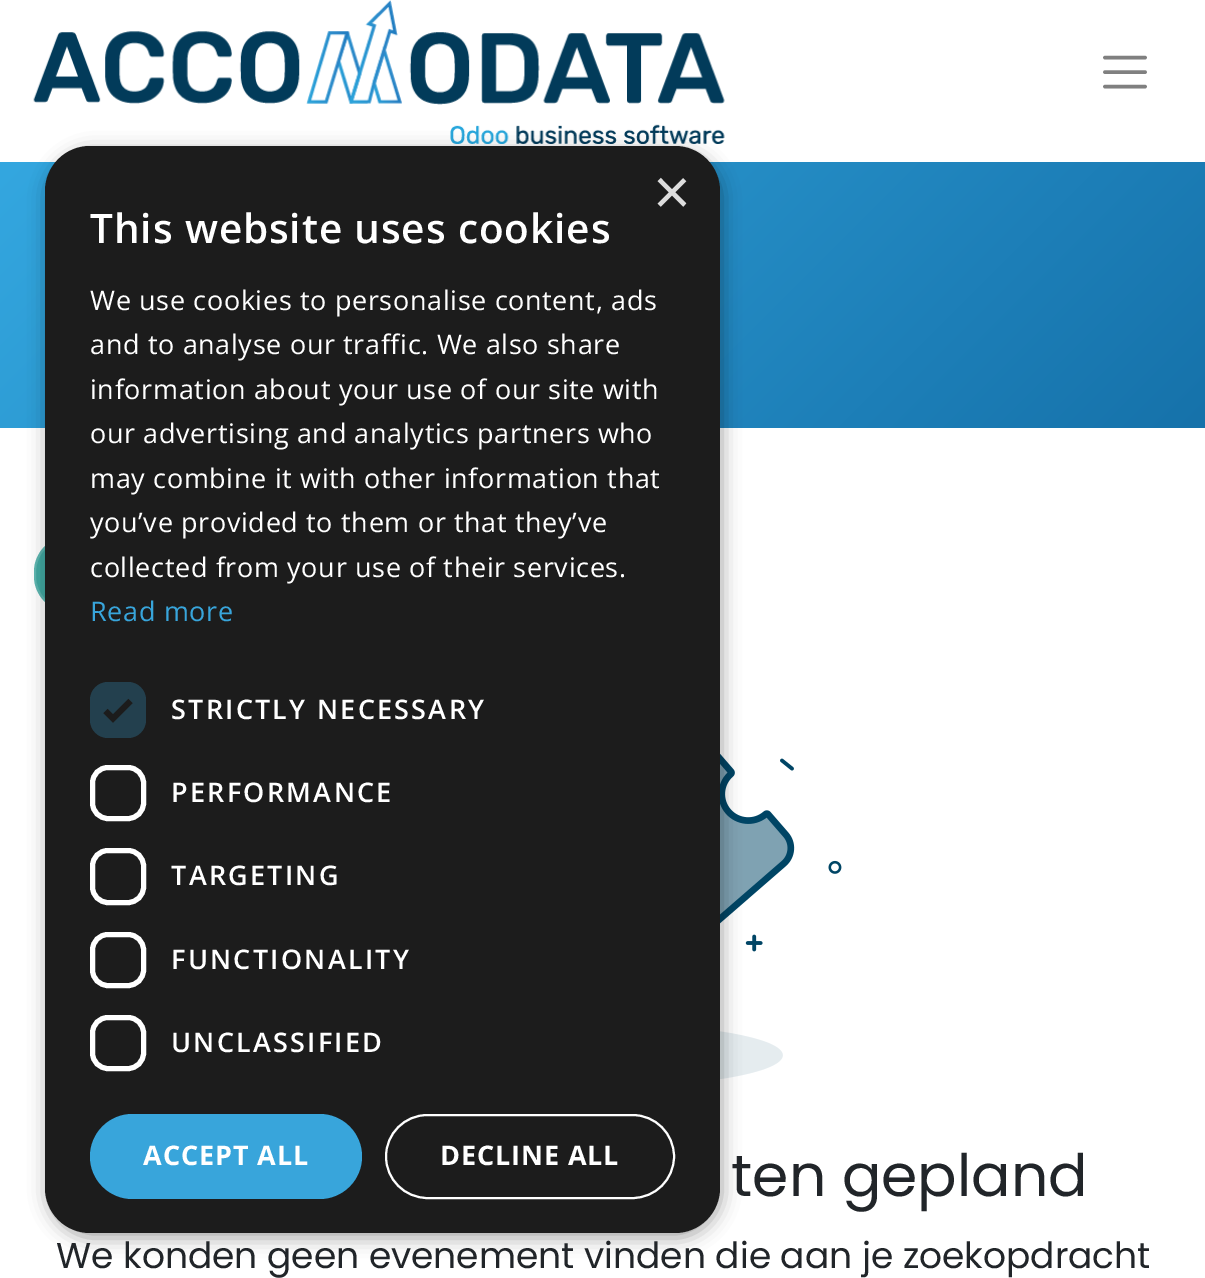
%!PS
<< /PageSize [1205 1278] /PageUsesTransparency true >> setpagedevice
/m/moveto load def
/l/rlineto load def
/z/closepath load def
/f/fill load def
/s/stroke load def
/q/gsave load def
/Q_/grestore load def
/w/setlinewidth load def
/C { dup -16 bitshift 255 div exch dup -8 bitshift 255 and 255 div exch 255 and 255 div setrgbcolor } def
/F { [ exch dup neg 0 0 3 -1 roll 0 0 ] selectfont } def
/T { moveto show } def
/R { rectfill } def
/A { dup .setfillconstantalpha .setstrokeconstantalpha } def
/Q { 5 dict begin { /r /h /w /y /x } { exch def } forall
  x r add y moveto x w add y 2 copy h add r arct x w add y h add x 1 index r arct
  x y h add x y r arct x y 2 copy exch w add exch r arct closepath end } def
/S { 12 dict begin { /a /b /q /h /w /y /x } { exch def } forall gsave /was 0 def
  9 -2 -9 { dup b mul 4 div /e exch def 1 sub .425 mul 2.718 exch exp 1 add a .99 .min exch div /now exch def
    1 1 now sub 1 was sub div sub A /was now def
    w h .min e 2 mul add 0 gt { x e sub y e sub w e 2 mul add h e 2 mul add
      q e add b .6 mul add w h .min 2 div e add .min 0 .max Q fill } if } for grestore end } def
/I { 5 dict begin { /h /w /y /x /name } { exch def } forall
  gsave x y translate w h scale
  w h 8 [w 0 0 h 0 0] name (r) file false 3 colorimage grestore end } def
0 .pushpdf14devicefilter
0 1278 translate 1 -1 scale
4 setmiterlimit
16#FFFFFF C
0 0 1205 1278 R
(1.rgb) 33 0 692 144 I
q 0 162 m 1205 0 l 0 266 l -1205 0 l z clip newpath
<< /ShadingType 2 /ColorSpace /DeviceRGB /Coords [235 -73 971 663] /Extend [true true] /Function << /FunctionType 2 /Domain [0 1] /C0 [.204 .655 .878] /C1 [.086 .447 .667] /N 1 >> >> shfill Q_
16#41A9A2 C
34 536 524 76 36 Q f
0.15 A
16#FFFFFF C
2 w
35 537 522 74 35 Q s
1 A
(2.rgb) 720 753 122 326 I
16#000000 C
47 151 675 1087 45 9 .35 S
16#1C1C1C C
45 146 675 1087 45 Q f
/LiberationSans-Regular 65 F
16#DDDDDD C
(×) 653 214 T
/OpenSans-SemiBold 40.5 F
16#FFFFFF C
90 243 m .9 0 (This website uses cookies) ashow
/OpenSans-Regular 27 F
90 310 m .65 0 (We use cookies to personalise content, ads) ashow
90 354 m .65 0 (and to analyse our traffic. We also share) ashow
90 399 m .65 0 (information about your use of our site with) ashow
90 443 m .65 0 (our advertising and analytics partners who) ashow
90 488 m .65 0 (may combine it with other information that) ashow
90 532 m .65 0 (you’ve provided to them or that they’ve) ashow
90 577 m .65 0 (collected from your use of their services.) ashow
16#38A5DB C
90 621 m .65 0 (Read more) ashow
16#23404E C
90 682 56 56 18 Q f
16#1C1C1C C
5.9 w
105.5 711 m 7.5 7.5 l 17.5 -17.5 l s
/OpenSans-SemiBold 27 F
16#FFFFFF C
171 719 m 2.25 0 (STRICTLY NECESSARY) ashow
5 w
92.5 767.5 51 51 15.5 Q s
171 802 m 2.25 0 (PERFORMANCE) ashow
92.5 850.5 51 52 15.5 Q s
171 885 m 2.25 0 (TARGETING) ashow
92.5 934.5 51 51 15.5 Q s
171 969 m 2.25 0 (FUNCTIONALITY) ashow
92.5 1017.5 51 51 15.5 Q s
171 1052 m 2.25 0 (UNCLASSIFIED) ashow
16#38A5DB C
90 1114 272 85 42.5 Q f
/OpenSans-Bold 27 F
16#FFFFFF C
143 1165 m .9 0 (ACCEPT ALL) ashow
2 w
386 1115 288 83 41.5 Q s
440 1165 m .9 0 (DECLINE ALL) ashow
16#808080 C
3.6 w
1 setlinecap
1105 57.5 m 40 0 l 1105 72 m 40 0 l 1105 86.5 m 40 0 l s
/Poppins-Regular 58.5 F
16#212529 C
(ten gepland) 731 1196 T
/Poppins-Regular 36 F
(We konden geen evenement vinden die aan je zoekopdracht) 56 1268 T
.poppdf14devicefilter showpage
